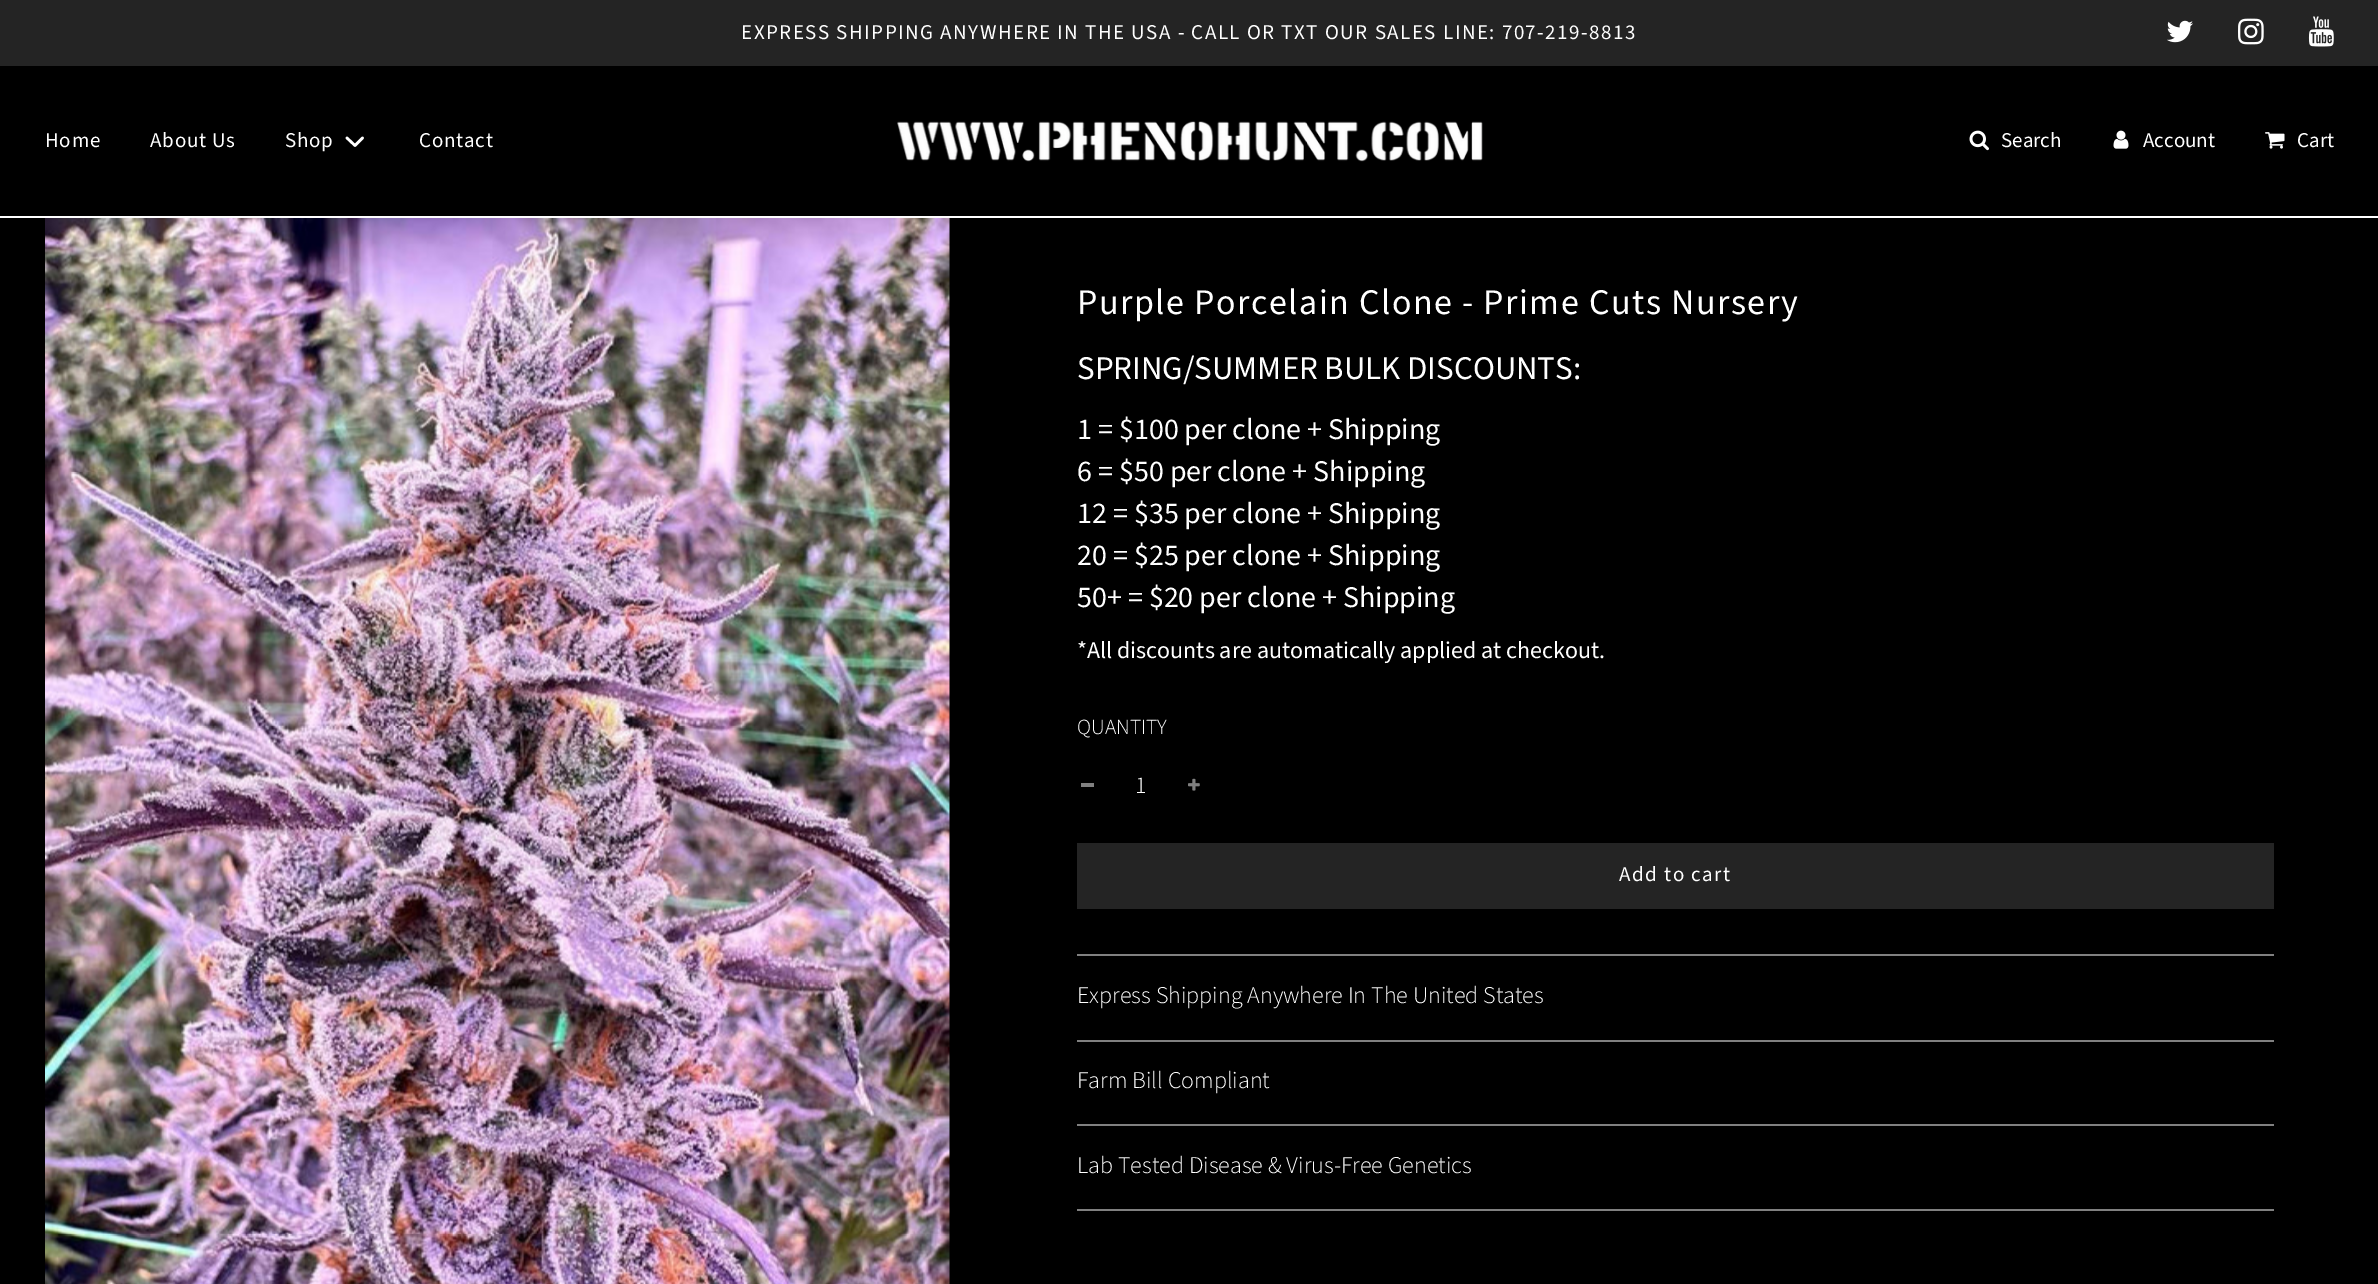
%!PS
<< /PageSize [2378 1284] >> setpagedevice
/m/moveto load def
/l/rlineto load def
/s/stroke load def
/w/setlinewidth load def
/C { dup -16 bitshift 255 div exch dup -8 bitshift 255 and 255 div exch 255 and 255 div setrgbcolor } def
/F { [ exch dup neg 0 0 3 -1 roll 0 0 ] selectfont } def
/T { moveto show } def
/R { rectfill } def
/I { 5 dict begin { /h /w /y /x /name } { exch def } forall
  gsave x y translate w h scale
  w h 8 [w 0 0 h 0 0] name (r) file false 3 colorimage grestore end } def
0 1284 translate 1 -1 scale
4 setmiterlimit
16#000000 C
0 0 2378 1284 R
16#242424 C
0 0 2378 66 R
/SourceSansPro-Regular 21 F
16#FFFFFF C
741 39 m 1.5 0 (EXPRESS SHIPPING ANYWHERE IN THE USA - CALL OR TXT OUR SALES LINE: 707-219-8813) ashow
(1.rgb) 2167 20 26 23 I
(2.rgb) 2238 18 26 27 I
(3.rgb) 2308 16 26 31 I
0 216 2378 2 R
45 147 m .75 0 (Home) ashow
150 147 m .75 0 (About Us) ashow
285 147 m .75 0 (Shop) ashow
2.6 w
1 setlinecap
1 setlinejoin
347 138 m 8 7.5 l 7.5 -7.5 l s
419 147 m .75 0 (Contact) ashow
(4.rgb) 897 121 586 41 I
(5.rgb) 1969 130 20 21 I
(Search) 2001 147 T
(6.rgb) 2113 130 16 19 I
(Account) 2143 147 T
(7.rgb) 2265 132 20 17 I
(Cart) 2297 147 T
(8.rgb) 45 218 905 1066 I
/SourceSansPro-Regular 36 F
1077 314 m 1.5 0 (Purple Porcelain Clone - Prime Cuts Nursery) ashow
/SourceSansPro-Regular 33.1 F
(SPRING/SUMMER BULK DISCOUNTS:) 1077 379 T
/SourceSansPro-Regular 30 F
(1 = $100 per clone + Shipping) 1077 439 T
(6 = $50 per clone + Shipping) 1077 481 T
(12 = $35 per clone + Shipping) 1077 523 T
(20 = $25 per clone + Shipping) 1077 565 T
(50+ = $20 per clone + Shipping) 1077 607 T
/SourceSansPro-Regular 24 F
(*All discounts are automatically applied at checkout.) 1077 658 T
/SourceSansPro-Light 21.5 F
(QUANTITY) 1077 734 T
16#808080 C
1081 783 13 4 R
/SourceSansPro-Light 24 F
16#FFFFFF C
(1) 1135 793 T
(9.rgb) 1188 778 12 13 I
16#242424 C
1077 843 1197 66 R
/SourceSansPro-Regular 21 F
16#FFFFFF C
1619 881 m 1.5 0 (Add to cart) ashow
16#808080 C
1077 954 1197 2 R
1077 1040 1197 2 R
/SourceSansPro-Light 24 F
16#FFFFFF C
(Express Shipping Anywhere In The United States) 1077 1003 T
16#808080 C
1077 1124 1197 2 R
16#FFFFFF C
(Farm Bill Compliant) 1077 1088 T
16#808080 C
1077 1209 1197 2 R
16#FFFFFF C
(Lab Tested Disease & Virus-Free Genetics) 1077 1173 T
showpage
